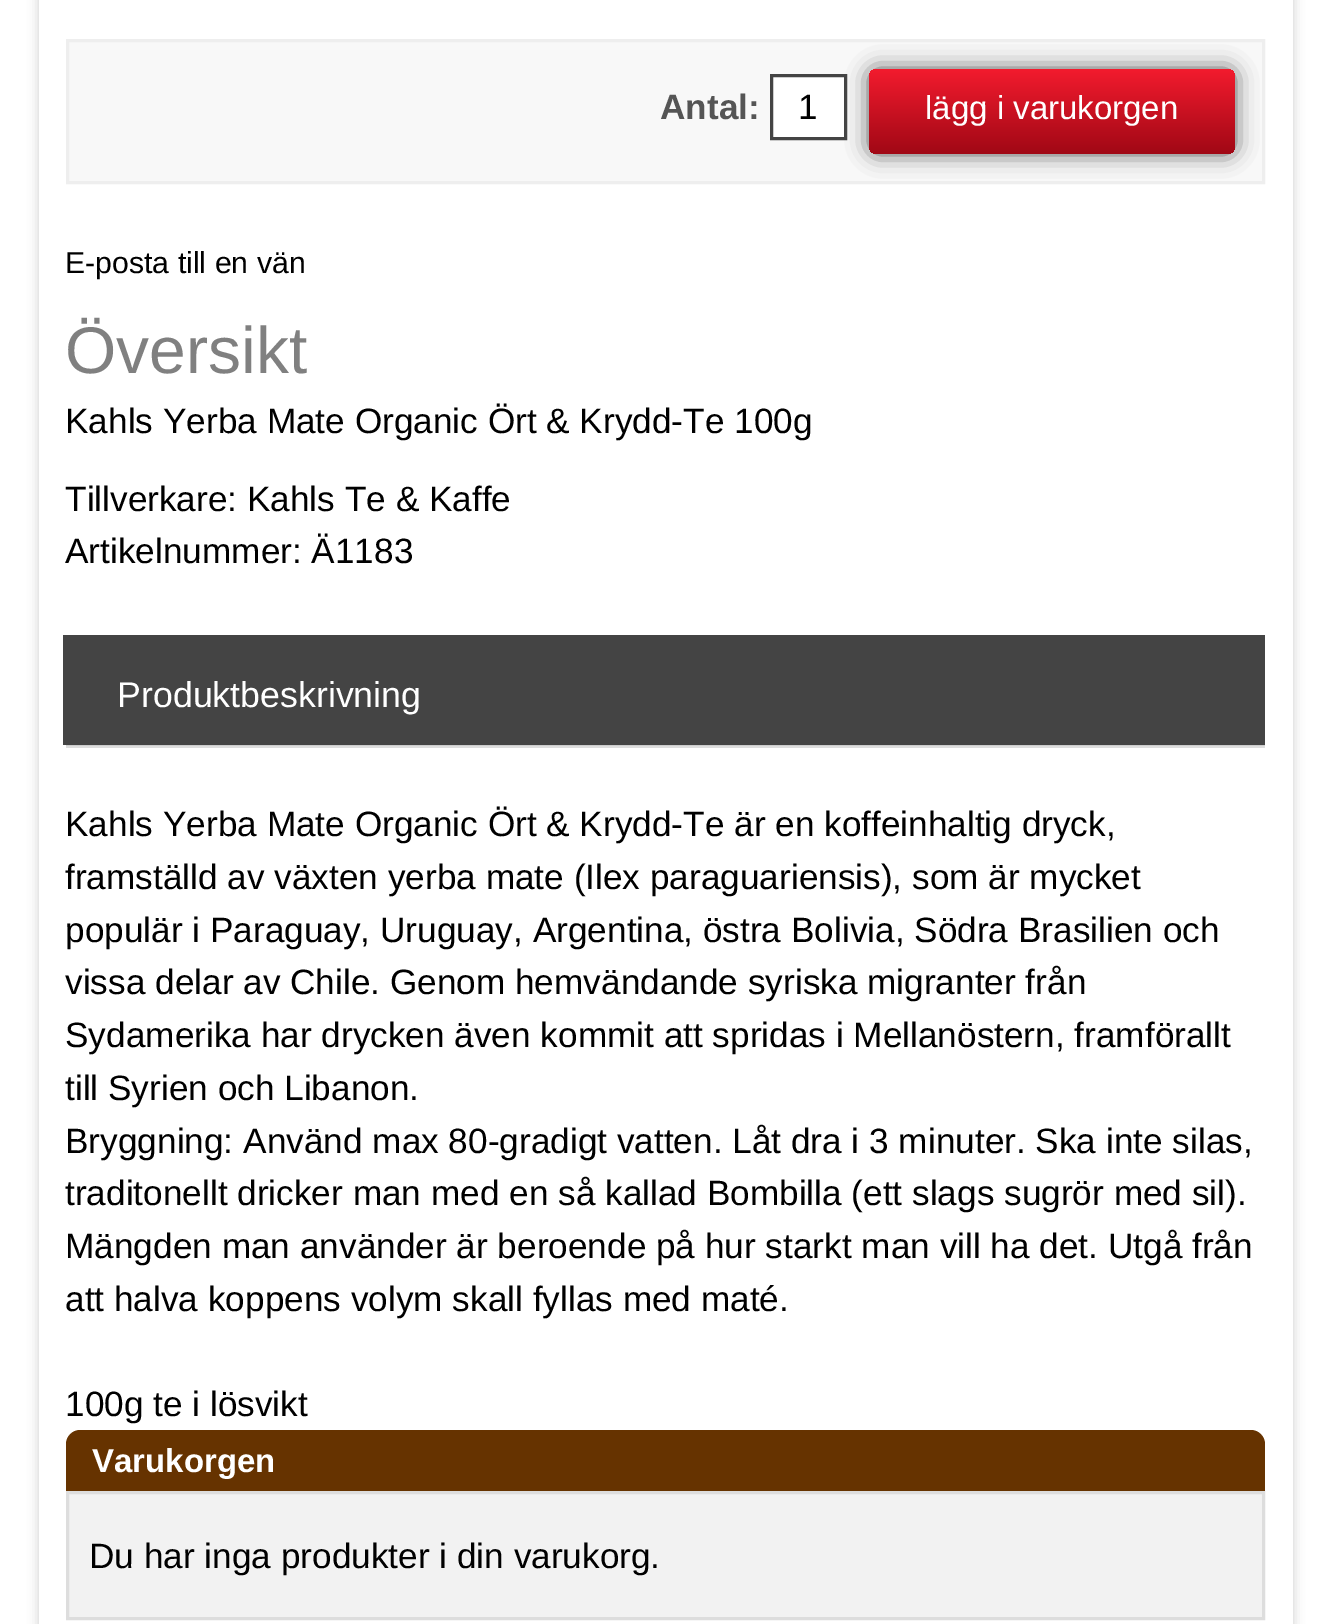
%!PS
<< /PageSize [1326 1624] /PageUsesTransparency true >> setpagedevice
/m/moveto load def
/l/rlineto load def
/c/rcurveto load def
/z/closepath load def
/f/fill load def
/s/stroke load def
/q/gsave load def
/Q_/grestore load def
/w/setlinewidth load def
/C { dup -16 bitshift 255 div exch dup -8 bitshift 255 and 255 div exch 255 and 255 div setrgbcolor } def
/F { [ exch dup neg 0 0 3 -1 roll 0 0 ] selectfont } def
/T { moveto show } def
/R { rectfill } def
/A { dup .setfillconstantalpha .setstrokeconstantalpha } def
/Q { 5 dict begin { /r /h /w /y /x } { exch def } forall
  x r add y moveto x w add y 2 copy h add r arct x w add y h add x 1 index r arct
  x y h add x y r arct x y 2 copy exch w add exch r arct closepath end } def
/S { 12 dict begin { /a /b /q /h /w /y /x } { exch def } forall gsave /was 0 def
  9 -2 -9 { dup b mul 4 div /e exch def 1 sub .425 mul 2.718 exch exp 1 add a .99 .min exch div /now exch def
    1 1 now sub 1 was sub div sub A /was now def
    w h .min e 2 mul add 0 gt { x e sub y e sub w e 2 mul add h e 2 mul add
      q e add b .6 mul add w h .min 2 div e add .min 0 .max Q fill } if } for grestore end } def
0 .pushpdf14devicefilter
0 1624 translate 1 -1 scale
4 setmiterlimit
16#FFFFFF C
0 0 1326 1624 R
16#CCCCCC C
39 -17 1254 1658 0 5.5 1 S
16#FFFFFF C
39 0 1254 1624 R
16#F8F8F8 C
67.5 40.5 m 1196 0 l 0 142 l -1196 0 l z q f Q_
16#EEEEEE C
3 w
s
/LiberationSans-Bold 35.2 F
16#555555 C
(Antal:) 660 119 T
16#FFFFFF C
771.5 75.5 m 74 0 l 0 63 l -74 0 l z q f Q_
16#444444 C
s
/LiberationSans-Regular 35.2 F
16#000000 C
(1) 798 119 T
16#555555 C
869 69 366 85 8 11 1 S
q 869 69 366 85 8 Q clip newpath
<< /ShadingType 2 /ColorSpace /DeviceRGB /Coords [1052 69 1052 154] /Extend [true true] /Function << /FunctionType 2 /Domain [0 1] /C0 [.953 .106 .18] /C1 [.627 .031 .082] /N 1 >> >> shfill Q_
/LiberationSans-Regular 33 F
16#FFFFFF C
(lägg i varukorgen) 925 119 T
/LiberationSans-Regular 30.25 F
16#000000 C
(E-posta till en vän) 65 273 T
/LiberationSans-Regular 66 F
16#808080 C
(Översikt) 65 373 T
/LiberationSans-Regular 35.2 F
16#000000 C
(Kahls Yerba Mate Organic Ört & Krydd-Te 100g) 65 433 T
(Tillverkare: Kahls Te & Kaffe) 65 511 T
(Artikelnummer: Ä1183) 65 563 T
16#DDDDDD C
66 746 1199 2 R
16#CCCCCC C
66 745 1199 1 R
16#444444 C
63 635 1202 110 R
/LiberationSans-Regular 35.75 F
16#FFFFFF C
(Produktbeskrivning) 117 707 T
/LiberationSans-Regular 35.2 F
16#000000 C
(Kahls Yerba Mate Organic Ört & Krydd-Te är en koffeinhaltig dryck,) 65 836 T
(framställd av växten yerba mate \(Ilex paraguariensis\), som är mycket) 65 889 T
(populär i Paraguay, Uruguay, Argentina, östra Bolivia, Södra Brasilien och) 65 942 T
(vissa delar av Chile. Genom hemvändande syriska migranter från) 65 994 T
(Sydamerika har drycken även kommit att spridas i Mellanöstern, framförallt) 65 1047 T
(till Syrien och Libanon.) 65 1100 T
(Bryggning: Använd max 80-gradigt vatten. Låt dra i 3 minuter. Ska inte silas,) 65 1153 T
(traditonellt dricker man med en så kallad Bombilla \(ett slags sugrör med sil\).) 65 1205 T
(Mängden man använder är beroende på hur starkt man vill ha det. Utgå från) 65 1258 T
(att halva koppens volym skall fyllas med maté.) 65 1311 T
(100g te i lösvikt) 65 1416 T
16#663300 C
80 1430 m 1171 0 l 7.5 0 14 6.5 14 14 c 0 47 l -1199 0 l 0 -47 l 0 -7.5 6.5 -14 14 -14 c z f
/LiberationSans-Bold 33 F
16#FFFFFF C
(Varukorgen) 92 1472 T
16#F2F2F2 C
67.5 1492.5 m 1196 0 l 0 126 l -1196 0 l z q f Q_
16#DDDDDD C
s
/LiberationSans-Regular 35.2 F
16#000000 C
(Du har inga produkter i din varukorg.) 89 1568 T
.poppdf14devicefilter showpage
